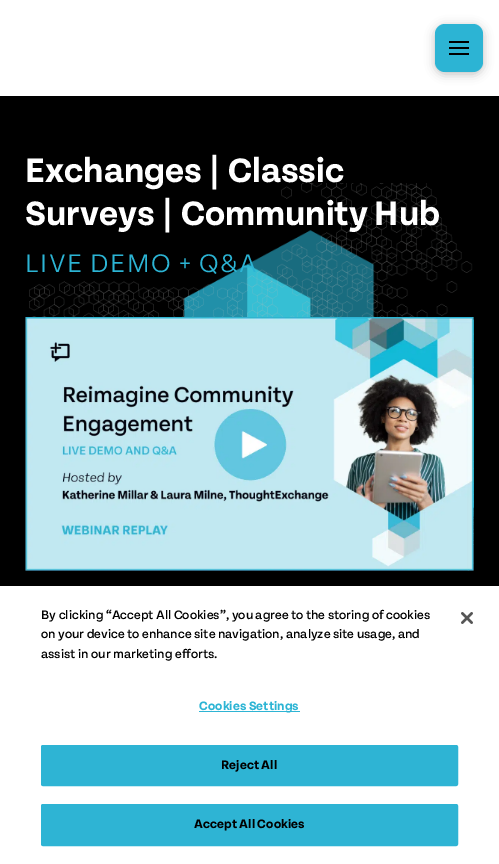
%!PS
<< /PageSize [499 864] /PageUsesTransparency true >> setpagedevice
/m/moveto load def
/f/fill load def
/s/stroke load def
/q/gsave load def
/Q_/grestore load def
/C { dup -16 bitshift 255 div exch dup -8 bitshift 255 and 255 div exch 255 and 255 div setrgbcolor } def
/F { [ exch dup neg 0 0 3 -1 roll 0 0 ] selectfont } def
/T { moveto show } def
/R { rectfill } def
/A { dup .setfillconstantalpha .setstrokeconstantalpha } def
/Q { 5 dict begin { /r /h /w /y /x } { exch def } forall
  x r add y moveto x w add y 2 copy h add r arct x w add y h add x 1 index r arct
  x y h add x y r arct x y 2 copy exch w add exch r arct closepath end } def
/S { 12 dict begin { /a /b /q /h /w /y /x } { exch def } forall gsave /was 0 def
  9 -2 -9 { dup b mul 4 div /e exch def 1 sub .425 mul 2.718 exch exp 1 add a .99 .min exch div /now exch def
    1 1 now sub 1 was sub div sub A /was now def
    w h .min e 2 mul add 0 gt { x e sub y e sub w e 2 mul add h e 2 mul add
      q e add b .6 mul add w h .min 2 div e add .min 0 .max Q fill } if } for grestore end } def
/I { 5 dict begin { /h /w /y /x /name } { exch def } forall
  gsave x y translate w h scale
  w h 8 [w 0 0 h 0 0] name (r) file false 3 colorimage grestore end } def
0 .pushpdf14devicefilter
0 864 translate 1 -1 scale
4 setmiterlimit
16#FFFFFF C
0 0 499 864 R
16#000000 C
435 26 48 48 10 5 .25 S
16#2CB4D4 C
435 24 48 48 10 Q f
16#000000 C
449 41 20 2 R
449 47 20 2 R
449 53 20 2 R
0 96 499 490 R
(2.rgb) 29 183 444 134 I
/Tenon-Bold 36 F
16#FFFFFF C
(Exchanges | Classic) 25 182 T
(Surveys | Community Hub) 25 225 T
/Tenon-Light 27 F
16#2CB4D4 C
25 272 m 1.4 0 (LIVE DEMO + Q&A) ashow
(1.rgb) 25 317 449 254 I
/Tenon-Medium 13 F
16#000000 C
(By clicking “Accept All Cookies”, you agree to the storing of cookies) 41 619 T
(on your device to enhance site navigation, analyze site usage, and) 41 638 T
(assist in our marketing efforts.) 41 658 T
16#2EB4D4 C
199 711 101 1 R
/Tenon-Bold 13 F
16#2CB4D4 C
199 710 m .1 0 (Cookies Settings) ashow
16#2EB4D4 C
41.5 745.5 416 40 1.5 Q q f Q_
s
16#000000 C
221 769 m .1 0 (Reject All) ashow
16#2EB4D4 C
41.5 804.5 416 41 1.5 Q q f Q_
s
16#000000 C
194 828 m .1 0 (Accept All Cookies) ashow
(3.rgb) 461 612 12 12 I
.poppdf14devicefilter showpage
